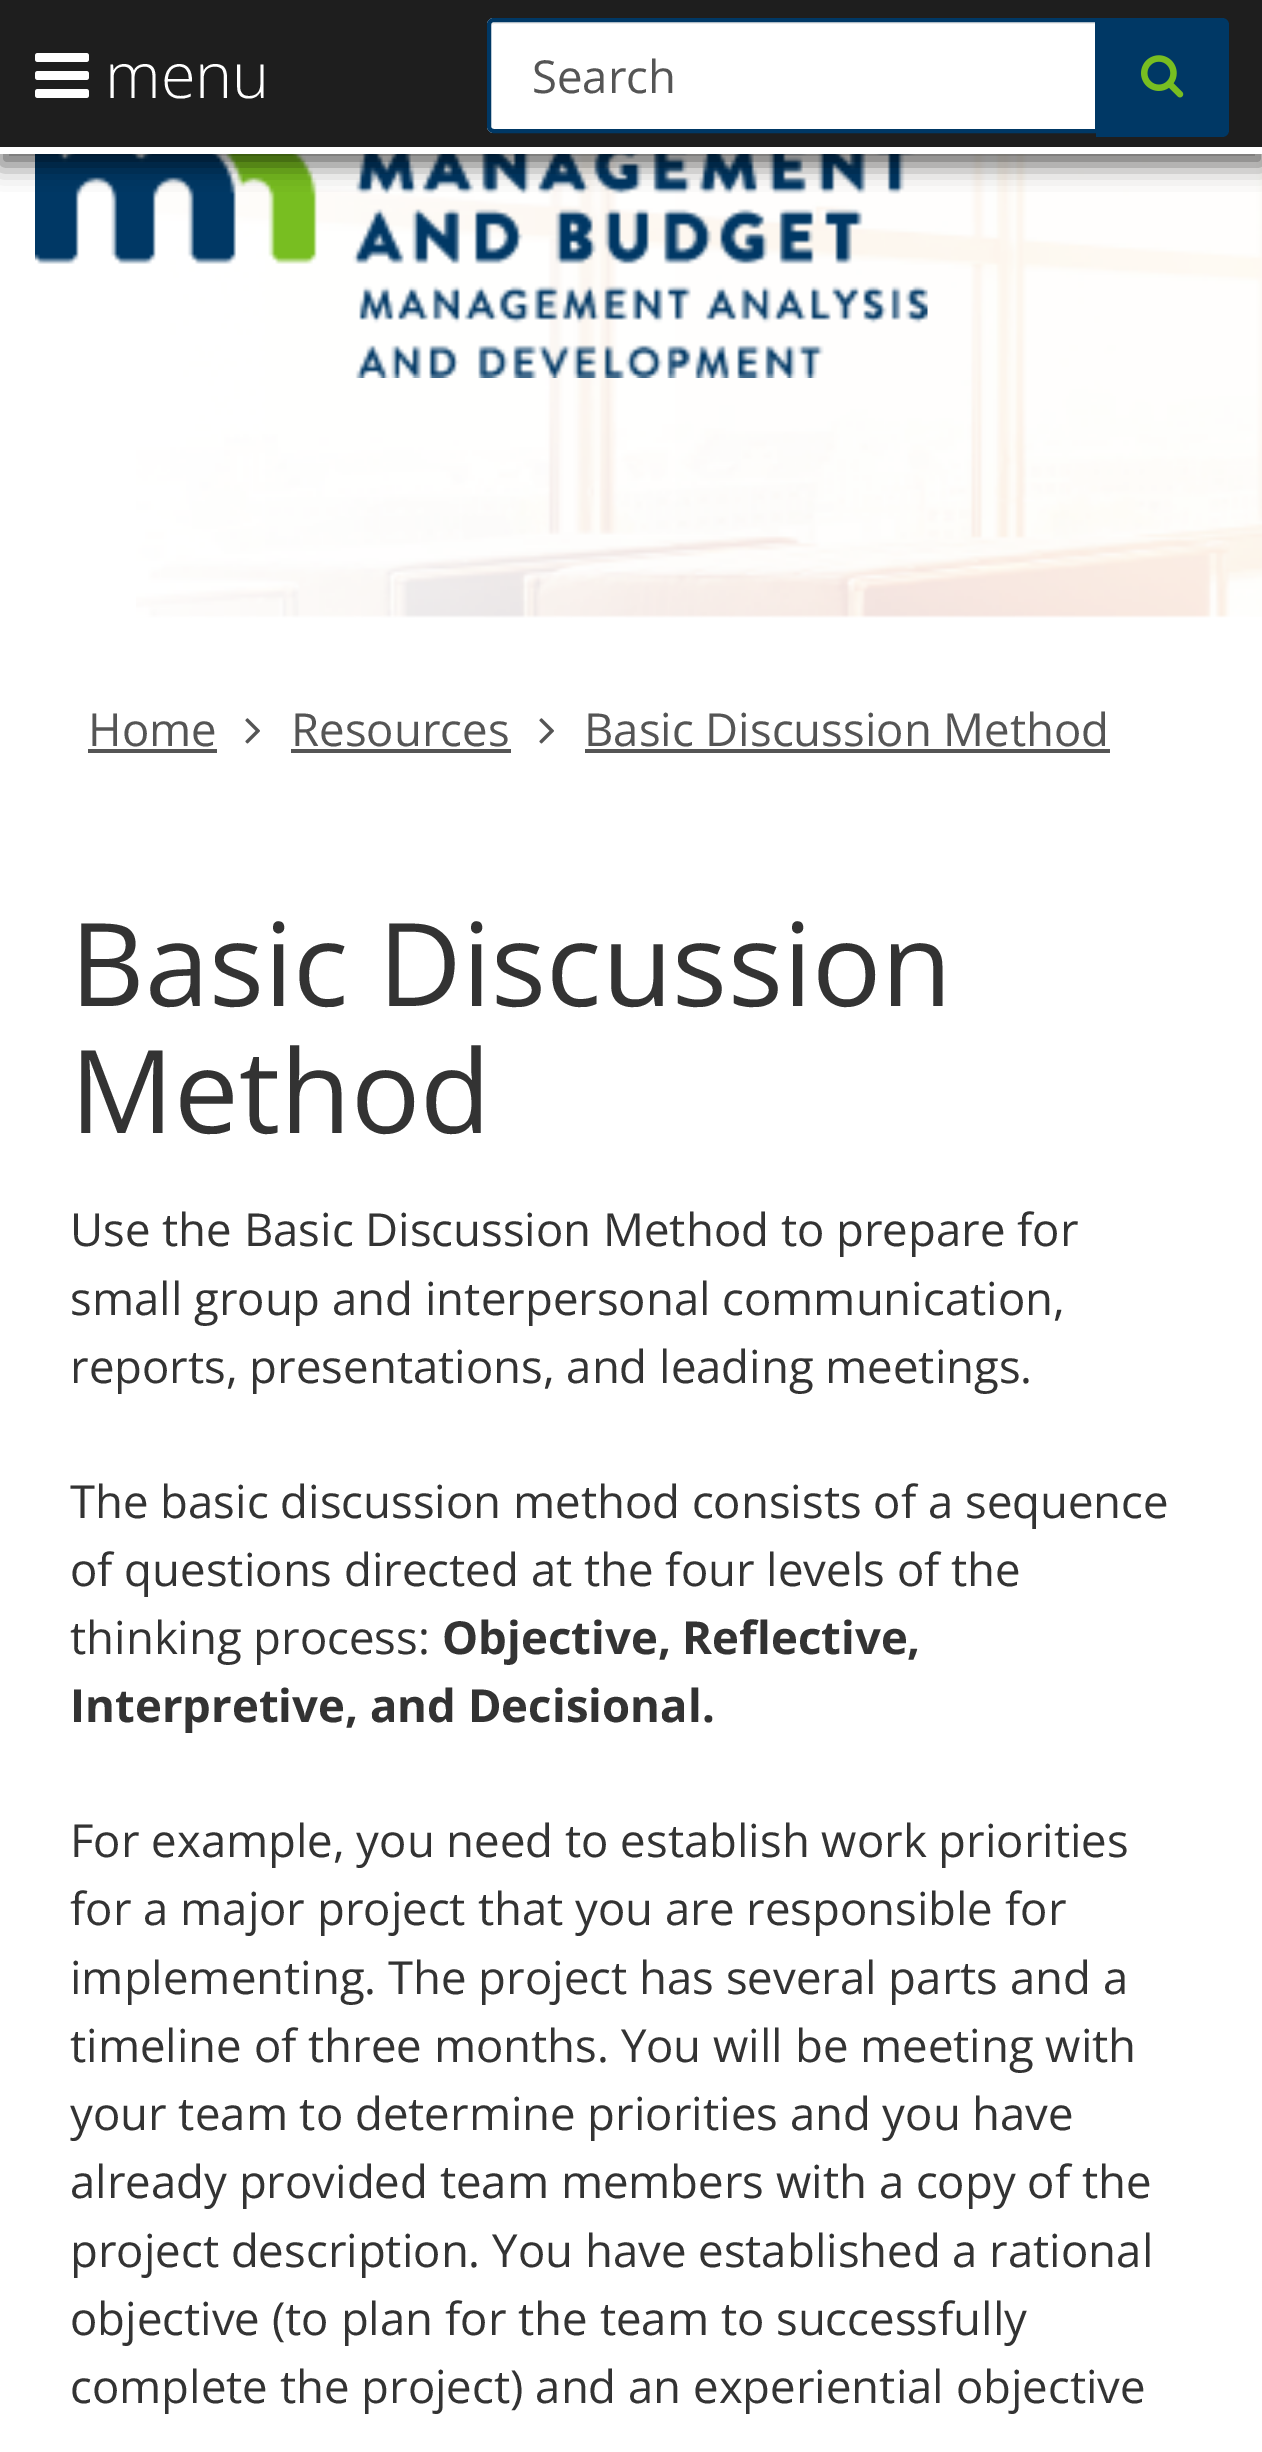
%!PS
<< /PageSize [1262 2452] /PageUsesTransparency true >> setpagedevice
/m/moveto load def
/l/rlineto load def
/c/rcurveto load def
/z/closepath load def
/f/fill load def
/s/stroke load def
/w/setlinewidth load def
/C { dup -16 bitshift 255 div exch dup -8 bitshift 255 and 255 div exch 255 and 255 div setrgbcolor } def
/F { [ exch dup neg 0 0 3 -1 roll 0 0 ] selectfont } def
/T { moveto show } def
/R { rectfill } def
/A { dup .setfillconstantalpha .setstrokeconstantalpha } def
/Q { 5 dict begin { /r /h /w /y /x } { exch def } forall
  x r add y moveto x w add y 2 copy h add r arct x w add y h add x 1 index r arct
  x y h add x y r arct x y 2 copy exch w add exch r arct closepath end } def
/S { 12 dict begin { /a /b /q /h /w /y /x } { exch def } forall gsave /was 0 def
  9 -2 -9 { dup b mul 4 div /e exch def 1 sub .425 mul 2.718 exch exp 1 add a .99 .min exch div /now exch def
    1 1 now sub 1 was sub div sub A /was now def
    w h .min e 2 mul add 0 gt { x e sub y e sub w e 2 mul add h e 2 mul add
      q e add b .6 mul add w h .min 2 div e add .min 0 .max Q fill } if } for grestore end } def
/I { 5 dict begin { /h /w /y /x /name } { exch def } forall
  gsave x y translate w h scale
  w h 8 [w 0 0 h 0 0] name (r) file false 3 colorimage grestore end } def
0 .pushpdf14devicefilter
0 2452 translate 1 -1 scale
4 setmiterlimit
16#FFFFFF C
0 0 1262 2452 R
(2.rgb) 136 154 1126 464 I
(4.rgb) 35 154 893 224 I
16#000000 C
0 11 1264 154 0 12 .6 S
16#1E1E1E C
0 0 1262 147 R
16#FFFFFF C
0 147 1262 7 R
(1.rgb) 35 53 54 45 I
/OpenSans-Light 63 F
(menu) 105 98 T
16#003865 C
1096 18 m 126 0 l 4 0 7 3 7 7 c 0 105 l 0 4 -3 7 -7 7 c -126 0 l z f
16#FFFFFF C
494 18 m 605 0 l 0 115 l -605 0 l -4 0 -7 -3 -7 -7 c 0 -101 l 0 -4 3 -7 7 -7 c z f
16#ECECEC C
494 24 m 602 0 l 0 -3 l -602 0 l -2 0 -4 2 -4 4 c 0 3 l 0 -2 2 -4 4 -4 c z f
16#003865 C
4 w
494 20 m 603 0 l 0 111 l -603 0 l -3 0 -5 -2 -5 -5 c 0 -101 l 0 -3 2 -5 5 -5 c z s
/OpenSans-Regular 45.5 F
16#555555 C
(Search) 532 93 T
(3.rgb) 1141 55 43 43 I
(Home) 88 746 T
88 749 129 4 R
(5.rgb) 245 718 15 26 I
(Resources) 291 746 T
291 749 220 4 R
(6.rgb) 539 718 15 26 I
(Basic Discussion Method) 584 746 T
585 749 525 4 R
/OpenSans-Regular 115.5 F
16#333333 C
(Basic Discussion) 70 1006 T
(Method) 70 1133 T
/OpenSans-Regular 45.5 F
(Use the Basic Discussion Method to prepare for) 70 1246 T
(small group and interpersonal communication,) 70 1315 T
(reports, presentations, and leading meetings.) 70 1383 T
(The basic discussion method consists of a sequence) 70 1518 T
(of questions directed at the four levels of the) 70 1586 T
(thinking process:) 70 1654 T
/OpenSans-Bold 45.5 F
(Objective, Reflective,) 442 1654 T
(Interpretive, and Decisional.) 70 1722 T
/OpenSans-Regular 45.5 F
(For example, you need to establish work priorities) 70 1857 T
(for a major project that you are responsible for) 70 1925 T
(implementing. The project has several parts and a) 70 1994 T
(timeline of three months. You will be meeting with) 70 2062 T
(your team to determine priorities and you have) 70 2130 T
(already provided team members with a copy of the) 70 2198 T
(project description. You have established a rational) 70 2267 T
(objective \(to plan for the team to successfully) 70 2335 T
(complete the project\) and an experiential objective) 70 2403 T
.poppdf14devicefilter showpage
